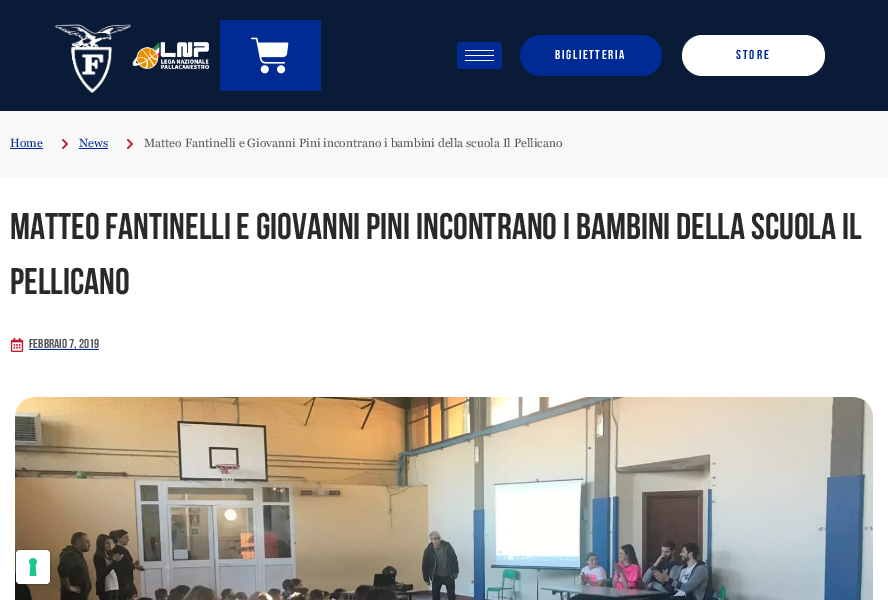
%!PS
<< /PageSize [888 600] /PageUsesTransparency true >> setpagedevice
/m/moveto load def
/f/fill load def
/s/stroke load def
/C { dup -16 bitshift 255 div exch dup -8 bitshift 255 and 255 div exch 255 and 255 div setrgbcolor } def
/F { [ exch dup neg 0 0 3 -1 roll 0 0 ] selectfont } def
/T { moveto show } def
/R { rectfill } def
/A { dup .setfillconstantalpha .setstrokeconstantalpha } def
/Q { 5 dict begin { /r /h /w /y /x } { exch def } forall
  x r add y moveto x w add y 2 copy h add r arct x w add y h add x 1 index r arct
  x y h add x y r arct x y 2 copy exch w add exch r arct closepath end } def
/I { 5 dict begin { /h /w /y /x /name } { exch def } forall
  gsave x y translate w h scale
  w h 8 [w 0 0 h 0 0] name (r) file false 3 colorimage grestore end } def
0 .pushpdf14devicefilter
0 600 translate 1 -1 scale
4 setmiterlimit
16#FFFFFF C
0 0 888 600 R
16#0A1B37 C
0 0 888 111 R
(1.rgb) 54 24 77 69 I
(2.rgb) 132 42 78 27 I
16#002B95 C
220 20 101 71 R
(3.rgb) 251 37 38 37 I
457 42 45 27 3 Q f
16#FFFFFF C
465 50 29 1 R
465 55 29 1 R
465 60 29 1 R
16#002B95 C
520 35 142 41 20.5 Q f
/BebasNeue-Bold 13 F
16#FFFFFF C
555 59 m 1.6 0 (BIGLIETTERIA) ashow
682 35 143 41 20.5 Q f
16#002B95 C
736 59 m 2 0 (STORE) ashow
16#F8F8F8 C
0 111 888 66 R
/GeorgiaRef-Regular 12 F
16#002B95 C
(Home) 10 147 T
10 148 33 1 R
(4.rgb) 62 139 6 10 I
(News) 79 147 T
79 148 29 1 R
(4.rgb) 127 139 6 10 I
16#555555 C
(Matteo Fantinelli e Giovanni Pini incontrano i bambini della scuola Il Pellicano) 144 147 T
/BebasNeue-Bold 37 F
16#292929 C
(Matteo Fantinelli e Giovanni Pini incontrano i bambini della scuola Il) 10 239 T
(Pellicano) 10 294 T
(5.rgb) 10 338 14 14 I
16#002B95 C
29 349 70 1 R
/BebasNeue-Bold 13 F
16#555555 C
(Febbraio 7, 2019) 29 348 T
(6.rgb) 15 397 858 203 I
0.15 A
16#000000 C
15.5 549.5 35 35 4.5 Q s
1 A
16#FFFFFF C
16 550 34 34 4 Q f
(7.rgb) 29 558 8 18 I
.poppdf14devicefilter showpage
